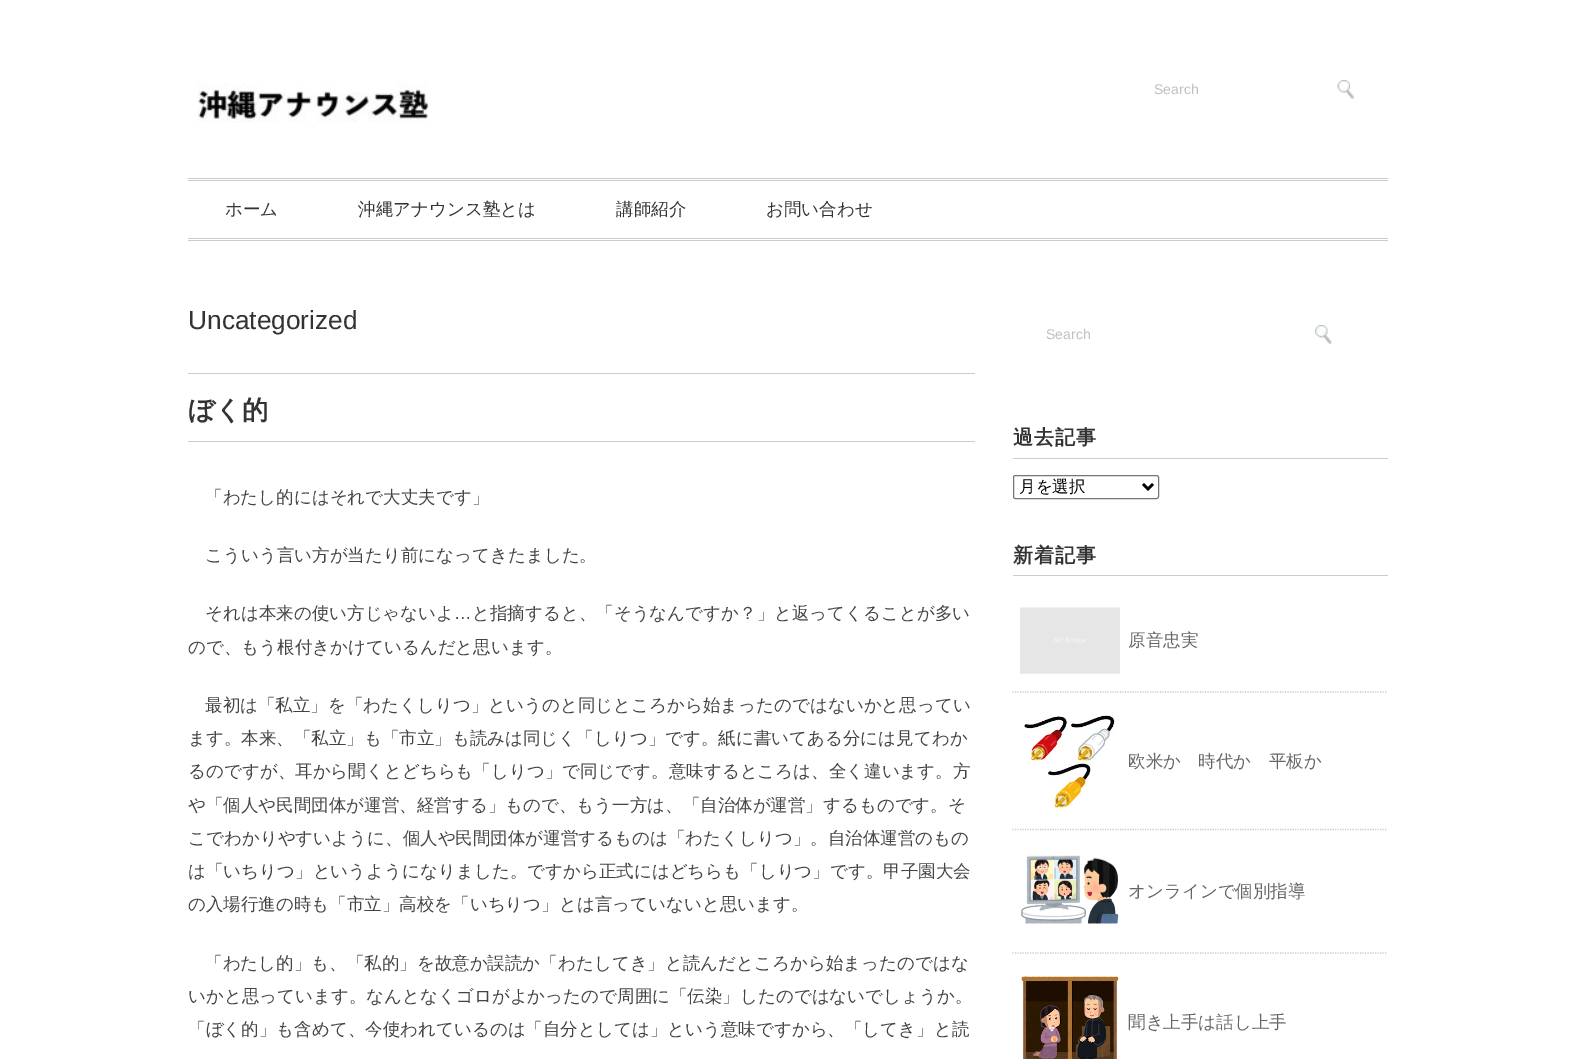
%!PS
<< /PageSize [1575 1059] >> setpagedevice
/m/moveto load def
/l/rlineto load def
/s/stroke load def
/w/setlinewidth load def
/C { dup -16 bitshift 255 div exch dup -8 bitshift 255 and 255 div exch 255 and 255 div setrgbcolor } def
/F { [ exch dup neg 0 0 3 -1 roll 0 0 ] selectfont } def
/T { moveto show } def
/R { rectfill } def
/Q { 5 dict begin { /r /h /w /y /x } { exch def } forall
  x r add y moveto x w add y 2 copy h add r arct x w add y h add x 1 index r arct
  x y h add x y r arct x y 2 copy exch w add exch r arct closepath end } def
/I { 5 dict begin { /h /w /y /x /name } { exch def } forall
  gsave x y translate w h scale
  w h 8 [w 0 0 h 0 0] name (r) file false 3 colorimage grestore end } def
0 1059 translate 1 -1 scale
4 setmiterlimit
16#FFFFFF C
0 0 1575 1059 R
(1.rgb) 197 83 232 40 I
/LiberationSans-Regular 14 F
16#C0C0C0 C
(Search) 1154 94 T
(2.rgb) 1337 80 17 19 I
16#CCCCCC C
188 178 1200 1 R
188 180 1200 1 R
188 238 1200 1 R
188 240 1200 1 R
/WenQuanYiZenHei-Medium 17.5 F
16#333333 C
(ホーム) 225 215 T
(沖縄アナウンス塾とは) 358 215 T
(講師紹介) 616 215 T
(お問い合わせ) 766 215 T
/LiberationSans-Regular 26.25 F
(Uncategorized) 188 329 T
16#CCCCCC C
188 373 787 1 R
188 441 787 1 R
/WenQuanYiZenHei-Bold 26.25 F
16#333333 C
(ぼく的) 188 419 T
/WenQuanYiZenHei-Medium 17.5 F
16#444444 C
(「わたし的にはそれで大丈夫です」) 205 503 T
(こういう言い方が当たり前になってきたました。) 205 561 T
(それは本来の使い方じゃないよ) 205 619 T
/LiberationSans-Regular 17.5 F
(…) 454 619 T
/WenQuanYiZenHei-Medium 17.5 F
(と指摘すると、「そうなんですか？」と返ってくることが多い) 472 619 T
(ので、もう根付きかけているんだと思います。) 188 653 T
(最初は「私立」を「わたくしりつ」というのと同じところから始まったのではないかと思ってい) 205 711 T
(ます。本来、「私立」も「市立」も読みは同じく「しりつ」です。紙に書いてある分には見てわか) 188 744 T
(るのですが、耳から聞くとどちらも「しりつ」で同じです。意味するところは、全く違います。方) 188 777 T
(や「個人や民間団体が運営、経営する」もので、もう一方は、「自治体が運営」するものです。そ) 188 811 T
(こでわかりやすいように、個人や民間団体が運営するものは「わたくしりつ」。自治体運営のもの) 188 844 T
(は「いちりつ」というようになりました。ですから正式にはどちらも「しりつ」です。甲子園大会) 188 877 T
(の入場行進の時も「市立」高校を「いちりつ」とは言っていないと思います。) 188 910 T
(「わたし的」も、「私的」を故意か誤読か「わたしてき」と読んだところから始まったのではな) 205 969 T
(いかと思っています。なんとなくゴロがよかったので周囲に「伝染」したのではないでしょうか。) 188 1002 T
(「ぼく的」も含めて、今使われているのは「自分としては」という意味ですから、「してき」と読) 188 1035 T
/LiberationSans-Regular 14 F
16#C0C0C0 C
(Search) 1046 339 T
(3.rgb) 1315 325 17 19 I
16#CCCCCC C
1013 458 375 1 R
/WenQuanYiZenHei-Bold 20 F
16#333333 C
1013 444 m 1 0 (過去記事) ashow
16#767676 C
1013.5 475.5 145 23 2 Q s
16#000000 C
2.5 w
1143 484 m 5 5 l 5 -5 l s
/WenQuanYiZenHei-Medium 16.5 F
(月を選択) 1019 492 T
16#CCCCCC C
1013 575 375 1 R
/WenQuanYiZenHei-Bold 20 F
16#333333 C
1013 562 m 1 0 (新着記事) ashow
16#CCCCCC C
1.2 w
[1.25 1.25] 0 setdash
1012.5 692 m 375 0 l s
(4.rgb) 1020 607 100 67 I
/WenQuanYiZenHei-Medium 17.5 F
16#666666 C
(原音忠実) 1128 646 T
16#CCCCCC C
1012.5 829.5 m 375 0 l s
(5.rgb) 1024 715 91 94 I
16#666666 C
(欧米か　時代か　平板か) 1128 767 T
16#CCCCCC C
1012.5 953 m 375 0 l s
(6.rgb) 1021 855 98 69 I
16#666666 C
(オンラインで個別指導) 1128 897 T
(7.rgb) 1021 976 98 83 I
(聞き上手は話し上手) 1128 1028 T
showpage
